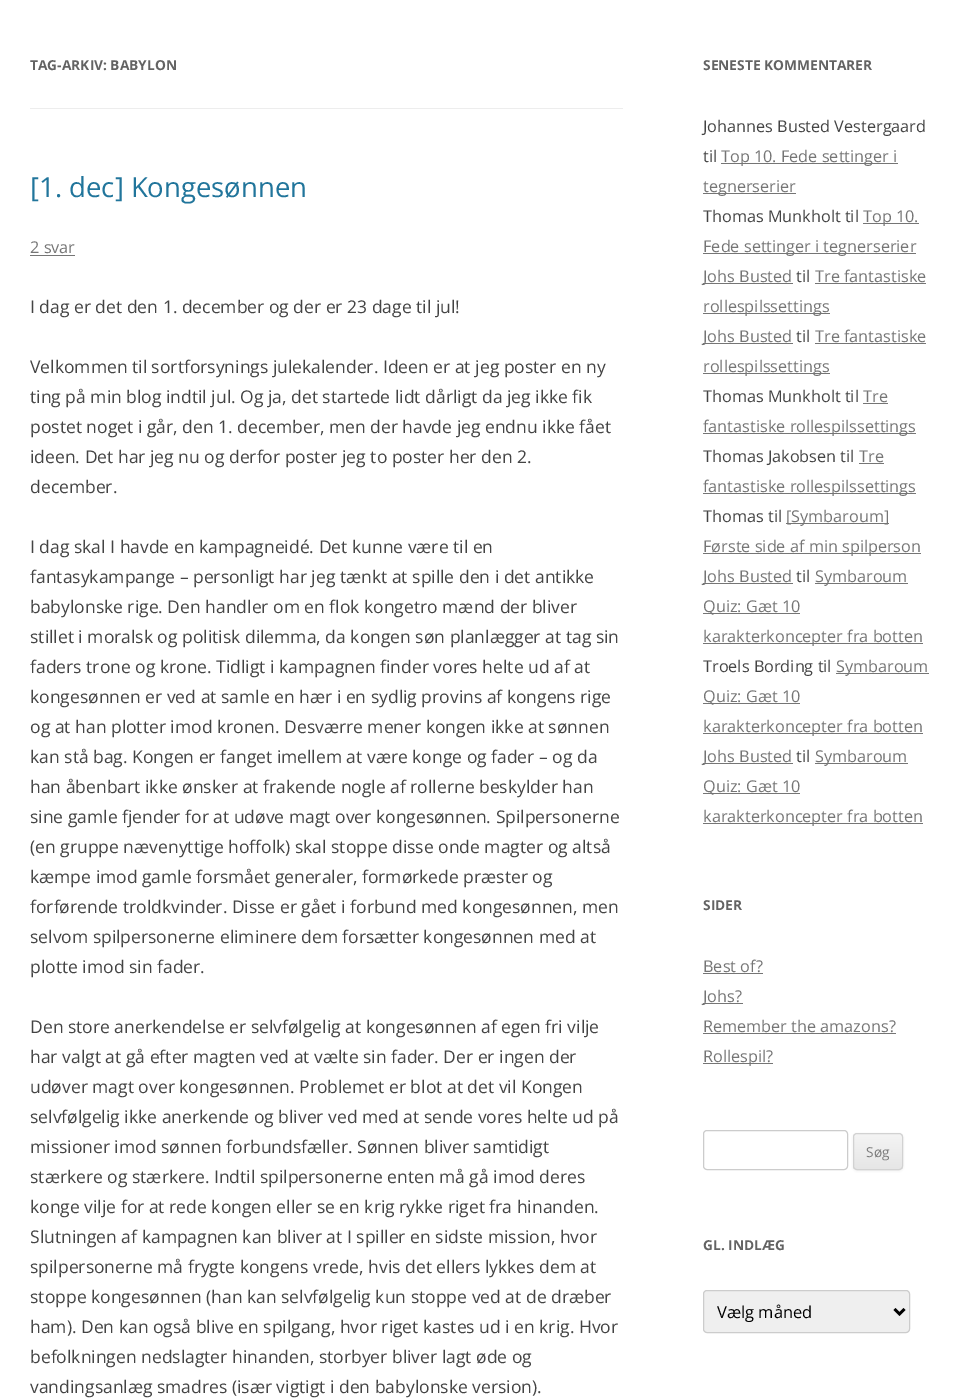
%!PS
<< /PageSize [970 1398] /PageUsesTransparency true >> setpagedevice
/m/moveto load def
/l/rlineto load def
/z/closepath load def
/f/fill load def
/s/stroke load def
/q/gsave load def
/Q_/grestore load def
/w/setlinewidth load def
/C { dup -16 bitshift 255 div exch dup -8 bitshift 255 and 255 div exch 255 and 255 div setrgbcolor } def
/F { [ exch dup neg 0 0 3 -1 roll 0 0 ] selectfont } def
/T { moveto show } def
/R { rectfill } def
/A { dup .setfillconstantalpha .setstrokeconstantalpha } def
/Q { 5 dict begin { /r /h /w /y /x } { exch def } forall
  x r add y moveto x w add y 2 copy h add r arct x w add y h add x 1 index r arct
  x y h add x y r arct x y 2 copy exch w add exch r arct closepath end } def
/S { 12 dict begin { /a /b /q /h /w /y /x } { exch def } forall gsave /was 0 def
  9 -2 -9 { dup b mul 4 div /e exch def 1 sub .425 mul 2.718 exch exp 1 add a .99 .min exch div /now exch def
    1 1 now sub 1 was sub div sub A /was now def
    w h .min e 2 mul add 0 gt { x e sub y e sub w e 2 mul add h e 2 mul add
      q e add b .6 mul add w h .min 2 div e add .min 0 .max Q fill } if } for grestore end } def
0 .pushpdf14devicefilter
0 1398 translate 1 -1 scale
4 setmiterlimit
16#FFFFFF C
0 0 970 1398 R
16#EDEDED C
30 108 593 1 R
/OpenSans-Bold 13.75 F
16#636363 C
(TAG-ARKIV: BABYLON) 30 70 T
/OpenSans-Regular 27.5 F
16#21759B C
([1. dec] Kongesønnen) 30 197 T
/OpenSans-Regular 16.25 F
16#757575 C
(2 svar) 30 253 T
30 255 45 1 R
/OpenSans-Regular 17.5 F
16#444444 C
(I dag er det den 1. december og der er 23 dage til jul!) 30 313 T
(Velkommen til sortforsynings julekalender. Ideen er at jeg poster en ny) 30 373 T
(ting på min blog indtil jul. Og ja, det startede lidt dårligt da jeg ikke fik) 30 403 T
(postet noget i går, den 1. december, men der havde jeg endnu ikke fået) 30 433 T
(ideen. Det har jeg nu og derfor poster jeg to poster her den 2.) 30 463 T
(december.) 30 493 T
(I dag skal I havde en kampagneidé. Det kunne være til en) 30 553 T
(fantasykampange – personligt har jeg tænkt at spille den i det antikke) 30 583 T
(babylonske rige. Den handler om en flok kongetro mænd der bliver) 30 613 T
(stillet i moralsk og politisk dilemma, da kongen søn planlægger at tag sin) 30 643 T
(faders trone og krone. Tidligt i kampagnen finder vores helte ud af at) 30 673 T
(kongesønnen er ved at samle en hær i en sydlig provins af kongens rige) 30 703 T
(og at han plotter imod kronen. Desværre mener kongen ikke at sønnen) 30 733 T
(kan stå bag. Kongen er fanget imellem at være konge og fader – og da) 30 763 T
(han åbenbart ikke ønsker at frakende nogle af rollerne beskylder han) 30 793 T
(sine gamle fjender for at udøve magt over kongesønnen. Spilpersonerne) 30 823 T
(\(en gruppe nævenyttige hoffolk\) skal stoppe disse onde magter og altså) 30 853 T
(kæmpe imod gamle forsmået generaler, formørkede præster og) 30 883 T
(forførende troldkvinder. Disse er gået i forbund med kongesønnen, men) 30 913 T
(selvom spilpersonerne eliminere dem forsætter kongesønnen med at) 30 943 T
(plotte imod sin fader.) 30 973 T
(Den store anerkendelse er selvfølgelig at kongesønnen af egen fri vilje) 30 1033 T
(har valgt at gå efter magten ved at vælte sin fader. Der er ingen der) 30 1063 T
(udøver magt over kongesønnen. Problemet er blot at det vil Kongen) 30 1093 T
(selvfølgelig ikke anerkende og bliver ved med at sende vores helte ud på) 30 1123 T
(missioner imod sønnen forbundsfæller. Sønnen bliver samtidigt) 30 1153 T
(stærkere og stærkere. Indtil spilpersonerne enten må gå imod deres) 30 1183 T
(konge vilje for at rede kongen eller se en krig rykke riget fra hinanden.) 30 1213 T
(Slutningen af kampagnen kan bliver at I spiller en sidste mission, hvor) 30 1243 T
(spilpersonerne må frygte kongens vrede, hvis det ellers lykkes dem at) 30 1273 T
(stoppe kongesønnen \(han kan selvfølgelig kun stoppe ved at de dræber) 30 1303 T
(ham\). Den kan også blive en spilgang, hvor riget kastes ud i en krig. Hvor) 30 1333 T
(befolkningen nedslagter hinanden, storbyer bliver lagt øde og) 30 1363 T
(vandingsanlæg smadres \(især vigtigt i den babylonske version\).) 30 1393 T
/OpenSans-Bold 13.75 F
16#636363 C
(SENESTE KOMMENTARER) 703 70 T
/OpenSans-Regular 16.25 F
16#444444 C
(Johannes Busted Vestergaard) 703 132 T
(til) 703 162 T
16#757575 C
721 163 177 1 R
(Top 10. Fede settinger i) 721 162 T
703 193 93 1 R
(tegnerserier) 703 192 T
16#444444 C
(Thomas Munkholt til) 703 222 T
16#757575 C
863 223 56 1 R
(Top 10.) 863 222 T
703 253 213 1 R
(Fede settinger i tegnerserier) 703 252 T
703 283 90 1 R
(Johs Busted) 703 282 T
16#444444 C
(til) 796 282 T
16#757575 C
(Tre fantastiske) 815 282 T
815 283 111 1 R
703 313 127 1 R
(rollespilssettings) 703 312 T
703 343 90 1 R
(Johs Busted) 703 342 T
16#444444 C
(til) 796 342 T
16#757575 C
(Tre fantastiske) 815 342 T
815 343 111 1 R
703 373 127 1 R
(rollespilssettings) 703 372 T
16#444444 C
(Thomas Munkholt til) 703 402 T
16#757575 C
(Tre) 863 402 T
863 403 25 1 R
703 433 213 1 R
(fantastiske rollespilssettings) 703 432 T
16#444444 C
(Thomas Jakobsen til) 703 462 T
16#757575 C
(Tre) 859 462 T
859 463 25 1 R
703 493 213 1 R
(fantastiske rollespilssettings) 703 492 T
16#444444 C
(Thomas til) 703 522 T
16#757575 C
786 523 103 1 R
([Symbaroum]) 786 522 T
703 553 218 1 R
(Første side af min spilperson) 703 552 T
703 583 90 1 R
(Johs Busted) 703 582 T
16#444444 C
(til) 796 582 T
16#757575 C
815 583 93 1 R
(Symbaroum) 815 582 T
703 613 97 1 R
(Quiz: Gæt 10) 703 612 T
703 643 220 1 R
(karakterkoncepter fra botten) 703 642 T
16#444444 C
(Troels Bording til) 703 672 T
16#757575 C
836 673 93 1 R
(Symbaroum) 836 672 T
703 703 97 1 R
(Quiz: Gæt 10) 703 702 T
703 733 220 1 R
(karakterkoncepter fra botten) 703 732 T
703 763 90 1 R
(Johs Busted) 703 762 T
16#444444 C
(til) 796 762 T
16#757575 C
815 763 93 1 R
(Symbaroum) 815 762 T
703 793 97 1 R
(Quiz: Gæt 10) 703 792 T
703 823 220 1 R
(karakterkoncepter fra botten) 703 822 T
/OpenSans-Bold 13.75 F
16#636363 C
(SIDER) 703 910 T
/OpenSans-Regular 16.25 F
16#757575 C
(Best of?) 703 972 T
703 973 60 1 R
703 1003 40 1 R
(Johs?) 703 1002 T
(Remember the amazons?) 703 1032 T
703 1033 193 1 R
703 1063 70 1 R
(Rollespil?) 703 1062 T
16#CCCCCC C
703.5 1130.5 144 39 3.5 Q s
16#404040 C
853 1134 50 37 4 1 .1 S
q
853 1133 50 37 4 Q clip newpath
q 853 1134 m 50 0 l 0 35 l -50 0 l z clip newpath
<< /ShadingType 2 /ColorSpace /DeviceRGB /Coords [878 1134 878 1169] /Extend [true true] /Function << /FunctionType 2 /Domain [0 1] /C0 [.957 .957 .957] /C1 [.902 .902 .902] /N 1 >> >> shfill Q_
Q_
16#D2D2D2 C
853.5 1133.5 49 36 3.5 Q s
/OpenSans-Regular 13.75 F
16#7C7C7C C
(Søg) 866 1157 T
/OpenSans-Bold 13.75 F
16#636363 C
(GL. INDLÆG) 703 1250 T
16#EFEFEF C
703.5 1290.5 206 42 3.5 Q q f Q_
16#CCCCCC C
s
16#000000 C
2.5 w
894.5 1309 m 5 5 l 5 -5 l s
/OpenSans-Regular 16.5 F
(Vælg måned) 717 1318 T
.poppdf14devicefilter showpage
